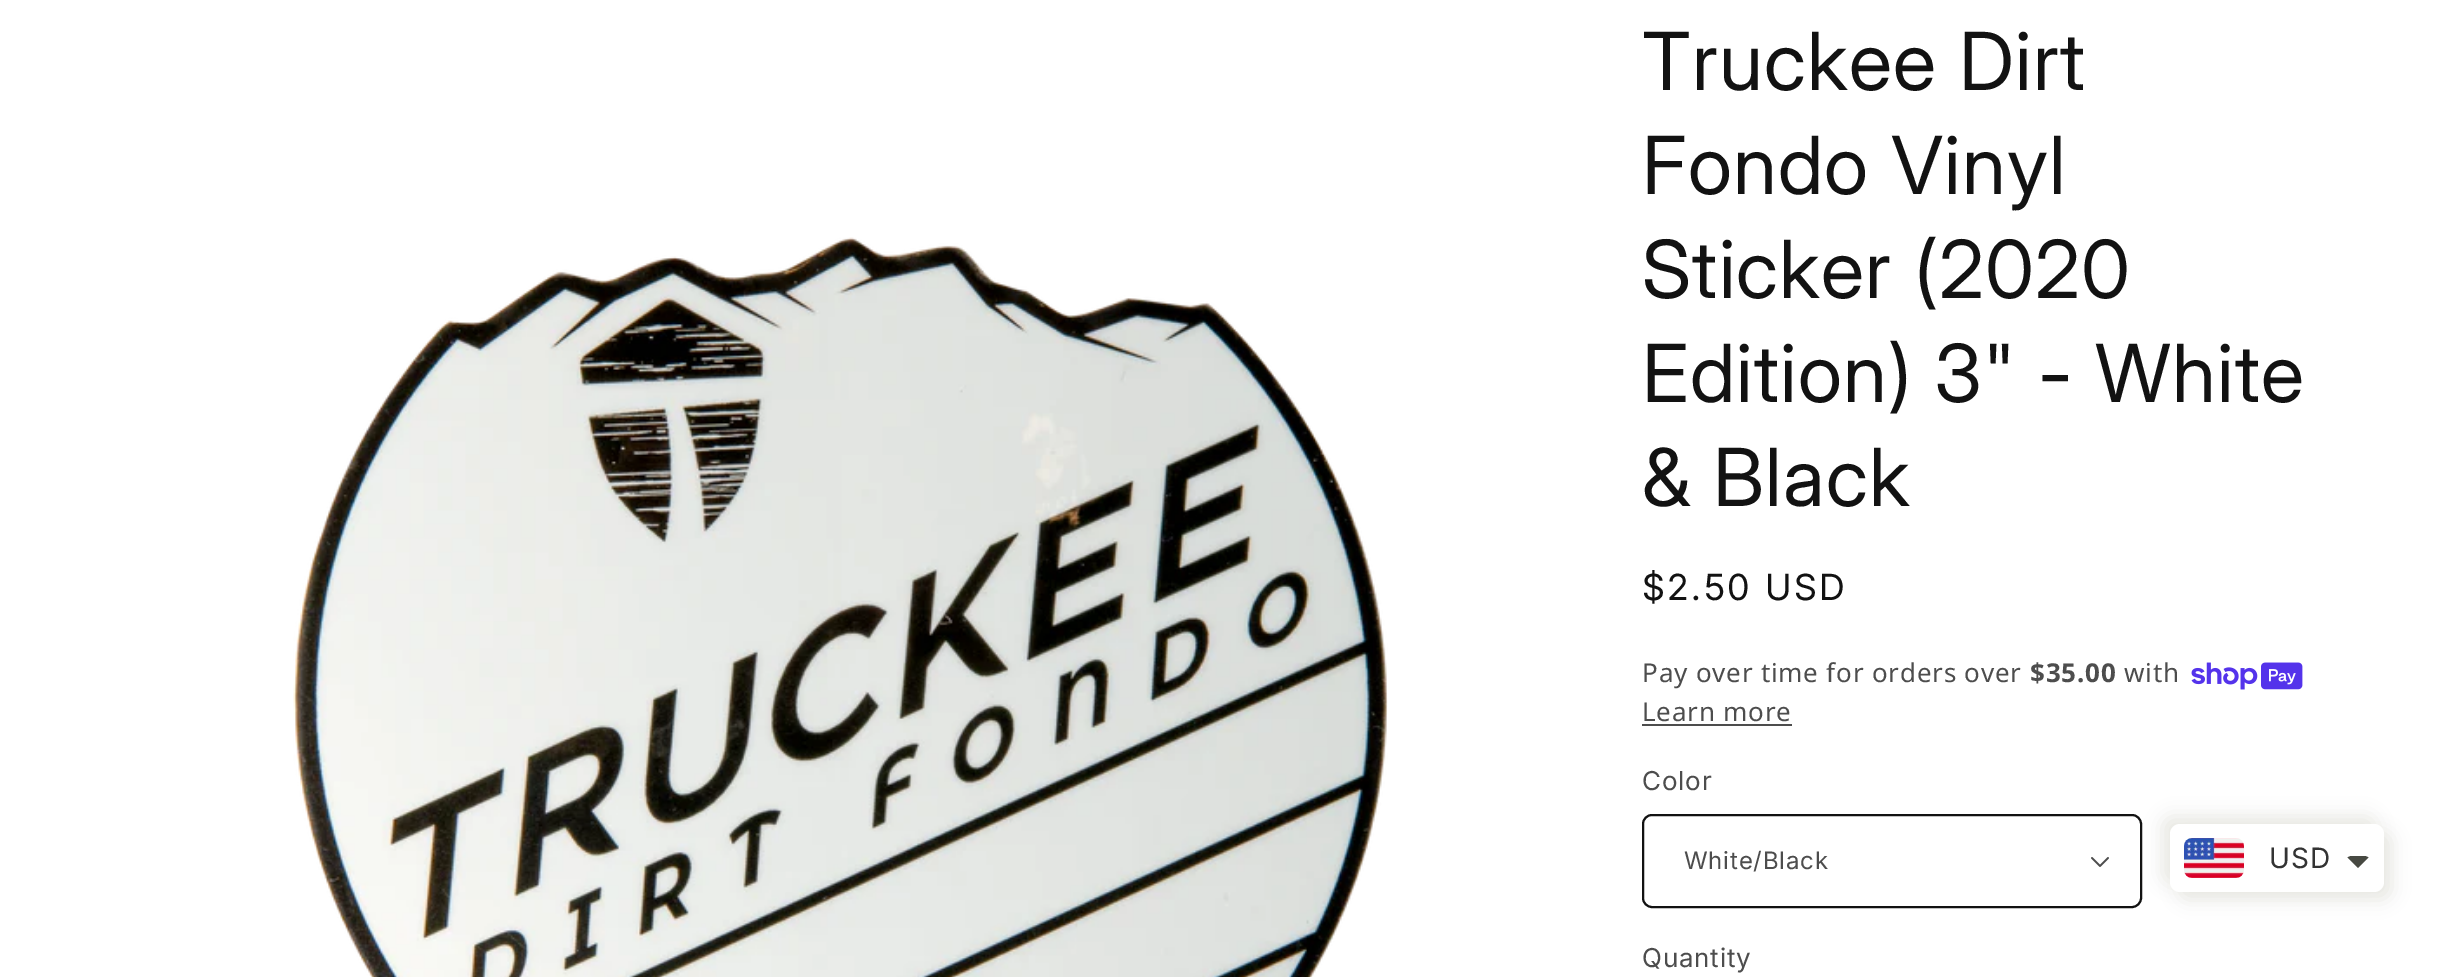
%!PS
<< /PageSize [2463 977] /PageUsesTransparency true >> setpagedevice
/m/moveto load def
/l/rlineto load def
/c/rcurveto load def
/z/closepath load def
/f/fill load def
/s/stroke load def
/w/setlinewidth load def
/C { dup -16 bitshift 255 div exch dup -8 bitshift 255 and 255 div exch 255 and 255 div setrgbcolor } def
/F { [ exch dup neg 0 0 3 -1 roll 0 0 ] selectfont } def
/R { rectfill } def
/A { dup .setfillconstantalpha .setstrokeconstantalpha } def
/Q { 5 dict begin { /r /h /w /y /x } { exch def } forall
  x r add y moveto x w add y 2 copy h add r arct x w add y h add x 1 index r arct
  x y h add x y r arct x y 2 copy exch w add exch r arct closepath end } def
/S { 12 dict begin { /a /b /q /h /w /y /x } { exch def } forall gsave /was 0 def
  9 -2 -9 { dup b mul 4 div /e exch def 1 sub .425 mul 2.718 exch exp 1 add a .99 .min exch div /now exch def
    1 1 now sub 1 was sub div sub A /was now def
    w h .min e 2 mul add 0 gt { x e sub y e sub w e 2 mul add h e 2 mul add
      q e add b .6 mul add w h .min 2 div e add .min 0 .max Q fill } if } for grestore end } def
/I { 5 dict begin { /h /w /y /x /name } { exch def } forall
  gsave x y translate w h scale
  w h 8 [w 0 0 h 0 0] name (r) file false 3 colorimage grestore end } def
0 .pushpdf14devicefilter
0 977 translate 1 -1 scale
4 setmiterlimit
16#FFFFFF C
0 0 2463 977 R
(1.rgb) 293 237 1095 740 I
/Inter-Regular 80 F
16#121212 C
1642 90 m 1.25 0 (Truckee Dirt) ashow
1642 194 m 1.25 0 (Fondo Vinyl) ashow
1642 298 m 1.25 0 (Sticker \(2020) ashow
1642 402 m 1.25 0 (Edition\) 3" - White) ashow
1642 506 m 1.25 0 (& Black) ashow
/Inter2-Regular 36 F
1642 600 m 2.5 0 ($2.50 USD) ashow
/NotoSans-Regular 26 F
16#4D4D4D C
1642 682 m .8 0 (Pay over time for orders over) ashow
/NotoSans-Bold 26 F
2030 682 m .8 0 ($35.00) ashow
/NotoSans-Regular 26 F
2124 682 m .8 0 (with) ashow
(2.rgb) 2191 662 112 28 I
1642 721 m .8 0 (Learn more) ashow
1642 724 150 2 R
/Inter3-Regular 26 F
1642 790 m .8 0 (Color) ashow
(3.rgb) 2091 857 18 10 I
16#121212 C
2 w
1643 815 498 92 9 Q s
/Inter3-Regular 24 F
16#4D4D4D C
1684 869 m .8 0 (White/Black) ashow
/Inter3-Regular 26 F
1642 967 m .8 0 (Quantity) ashow
16#E8E8E2 C
2162 816 214 68 10 9 1 S
2178 832 214 68 10 9 1 S
16#FFFFFF C
2170 824 214 68 10 Q f
(4.rgb) 2184 838 60 40 I
/Inter3-Regular 28 F
16#333333 C
2269 868 m 1.25 0 (USD) ashow
16#474942 C
2352 856 m -2 0 -3 .5 -4.5 1.5 c 10.5 10.5 l 10.5 -10.5 l -1.5 -1 -2.5 -1.5 -4.5 -1.5 c z f
.poppdf14devicefilter showpage
